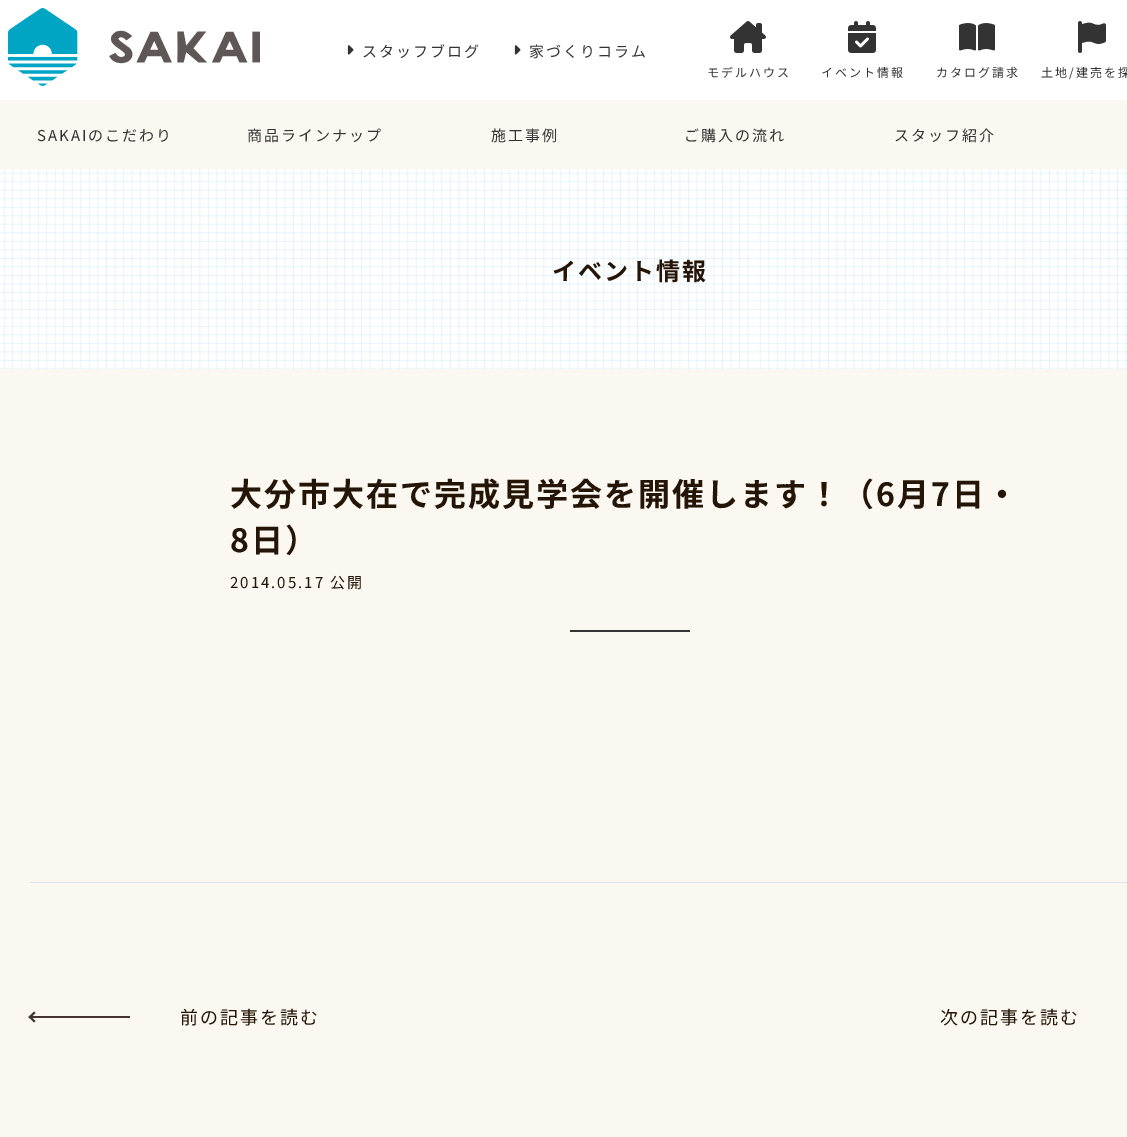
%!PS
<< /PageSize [1127 1137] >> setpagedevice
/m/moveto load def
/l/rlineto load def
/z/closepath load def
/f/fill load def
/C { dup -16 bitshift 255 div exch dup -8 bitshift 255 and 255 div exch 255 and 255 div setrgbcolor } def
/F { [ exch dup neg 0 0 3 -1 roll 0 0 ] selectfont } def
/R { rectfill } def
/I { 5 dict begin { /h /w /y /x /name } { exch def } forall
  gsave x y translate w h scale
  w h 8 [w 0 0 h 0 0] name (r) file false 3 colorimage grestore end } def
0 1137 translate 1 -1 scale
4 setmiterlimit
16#FBF8F1 C
0 0 1127 1137 R
16#FFFFFF C
0 0 1127 100 R
(1.rgb) 8 8 252 78 I
(2.rgb) 347 45 7 10 I
/NotoSansJP-Regular 15 F
16#333333 C
362 57 m 2 0 (スタッフブログ) ashow
(2.rgb) 514 45 7 10 I
529 57 m 2 0 (家づくりコラム) ashow
(3.rgb) 730 21 36 32 I
/NotoSansJP-Regular 12 F
707 77 m 2 0 (モデルハウス) ashow
(4.rgb) 848 21 28 32 I
821 77 m 2 0 (イベント情報) ashow
(5.rgb) 959 23 36 28 I
936 77 m 2 0 (カタログ請求) ashow
(6.rgb) 1078 21 28 32 I
1041 77 m 2 0 (土地/建売を探) ashow
/NotoSansJP-Regular 15 F
37 141 m 2 0 (SAKAIのこだわり) ashow
247 141 m 2 0 (商品ラインナップ) ashow
491 141 m 2 0 (施工事例) ashow
684 141 m 2 0 (ご購入の流れ) ashow
894 141 m 2 0 (スタッフ紹介) ashow
(7.rgb) 0 169 1127 200 I
/NotoSansJP-Bold 24 F
16#241506 C
552 280 m 2 0 (イベント情報) ashow
/NotoSansJP-Bold 32 F
230 506 m 2 0 (大分市大在で完成見学会を開催します！（6月7日・) ashow
230 552 m 2 0 (8日）) ashow
/NotoSansJP-Regular 15 F
230 588 m 2 0 (2014.05.17 公開) ashow
16#333333 C
570 630 120 2 R
16#D9E1EC C
30 882 1097 1 R
16#453333 C
30 1016 100 2 R
34 1022.5 m -5.5 -5.5 l 1.5 -1.5 l 5.5 5.5 l z f
30 1018.5 m -1.5 -1.5 l 5.5 -5.5 l 1.5 1.5 l z f
/NotoSansJP-Regular 18 F
16#241506 C
180 1024 m 2 0 (前の記事を読む) ashow
940 1024 m 2 0 (次の記事を読む) ashow
showpage
